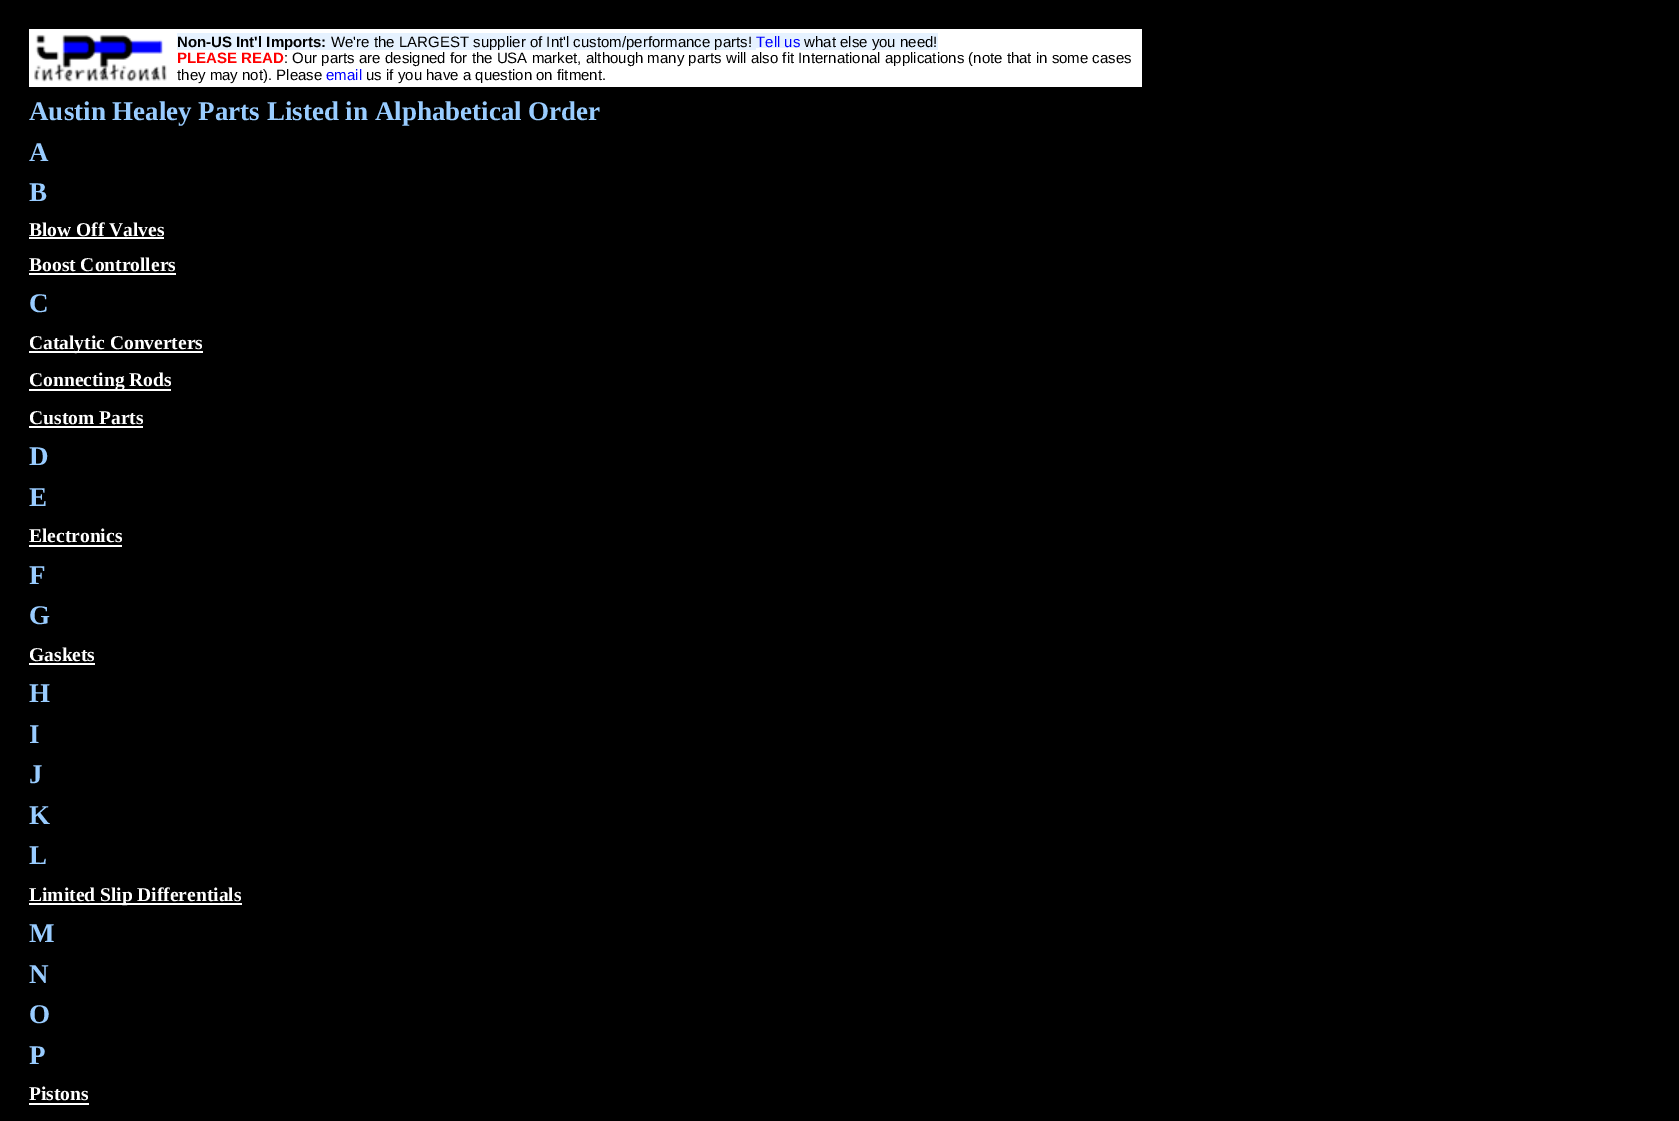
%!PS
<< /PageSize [1679 1121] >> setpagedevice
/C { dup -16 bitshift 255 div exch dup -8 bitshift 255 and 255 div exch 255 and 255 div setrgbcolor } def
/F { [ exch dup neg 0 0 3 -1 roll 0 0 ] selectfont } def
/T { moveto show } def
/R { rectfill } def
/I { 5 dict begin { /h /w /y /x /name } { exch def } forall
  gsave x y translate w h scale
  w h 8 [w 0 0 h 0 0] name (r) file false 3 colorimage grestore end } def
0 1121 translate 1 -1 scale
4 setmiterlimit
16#000000 C
0 0 1679 1121 R
16#FFFFFF C
29 29 1113 58 R
(1.rgb) 34 34 133 48 I
16#E6F2FF C
177 33 579 17 R
/LiberationSans-Bold 15 F
16#000000 C
(Non-US Int'l Imports:) 177 47 T
/LiberationSans-Regular 15 F
(We're the LARGEST supplier of Int'l custom/performance parts!) 331 47 T
16#E6F2FF C
756 33 44 15 R
16#0000FF C
(Tell us) 756 47 T
16#E6F2FF C
800 33 138 17 R
16#000000 C
(what else you need!) 804 47 T
/LiberationSans-Bold 15 F
16#FF0000 C
(PLEASE READ) 177 63 T
/LiberationSans-Regular 15 F
16#000000 C
(: Our parts are designed for the USA market, although many parts will also fit International applications \(note that in some cases) 284 63 T
(they may not\). Please) 177 80 T
16#0000FF C
(email) 326 80 T
16#000000 C
(us if you have a question on fitment.) 366 80 T
/LiberationSerif-Bold 27 F
16#99CCFF C
(Austin Healey Parts Listed in Alphabetical Order) 29 120 T
(A) 29 161 T
(B) 29 201 T
/LiberationSerif-Bold 19.5 F
16#FFFFFF C
(Blow Off Valves) 29 236 T
29 237 135 2 R
(Boost Controllers) 29 271 T
29 273 147 2 R
/LiberationSerif-Bold 27 F
16#99CCFF C
(C) 29 312 T
16#FFFFFF C
29 351 174 2 R
/LiberationSerif-Bold 19.5 F
(Catalytic Converters) 29 349 T
29 389 142 2 R
(Connecting Rods) 29 386 T
(Custom Parts) 29 424 T
29 426 114 2 R
/LiberationSerif-Bold 27 F
16#99CCFF C
(D) 29 465 T
(E) 29 506 T
/LiberationSerif-Bold 19.5 F
16#FFFFFF C
(Electronics) 29 542 T
29 545 93 2 R
/LiberationSerif-Bold 27 F
16#99CCFF C
(F) 29 584 T
(G) 29 624 T
/LiberationSerif-Bold 19.5 F
16#FFFFFF C
(Gaskets) 29 661 T
29 663 66 2 R
/LiberationSerif-Bold 27 F
16#99CCFF C
(H) 29 702 T
(I) 29 743 T
(J) 29 783 T
(K) 29 824 T
(L) 29 864 T
16#FFFFFF C
29 903 213 2 R
/LiberationSerif-Bold 19.5 F
(Limited Slip Differentials) 29 901 T
/LiberationSerif-Bold 27 F
16#99CCFF C
(M) 29 942 T
(N) 29 983 T
(O) 29 1023 T
(P) 29 1064 T
/LiberationSerif-Bold 19.5 F
16#FFFFFF C
(Pistons) 29 1100 T
29 1103 60 2 R
showpage
